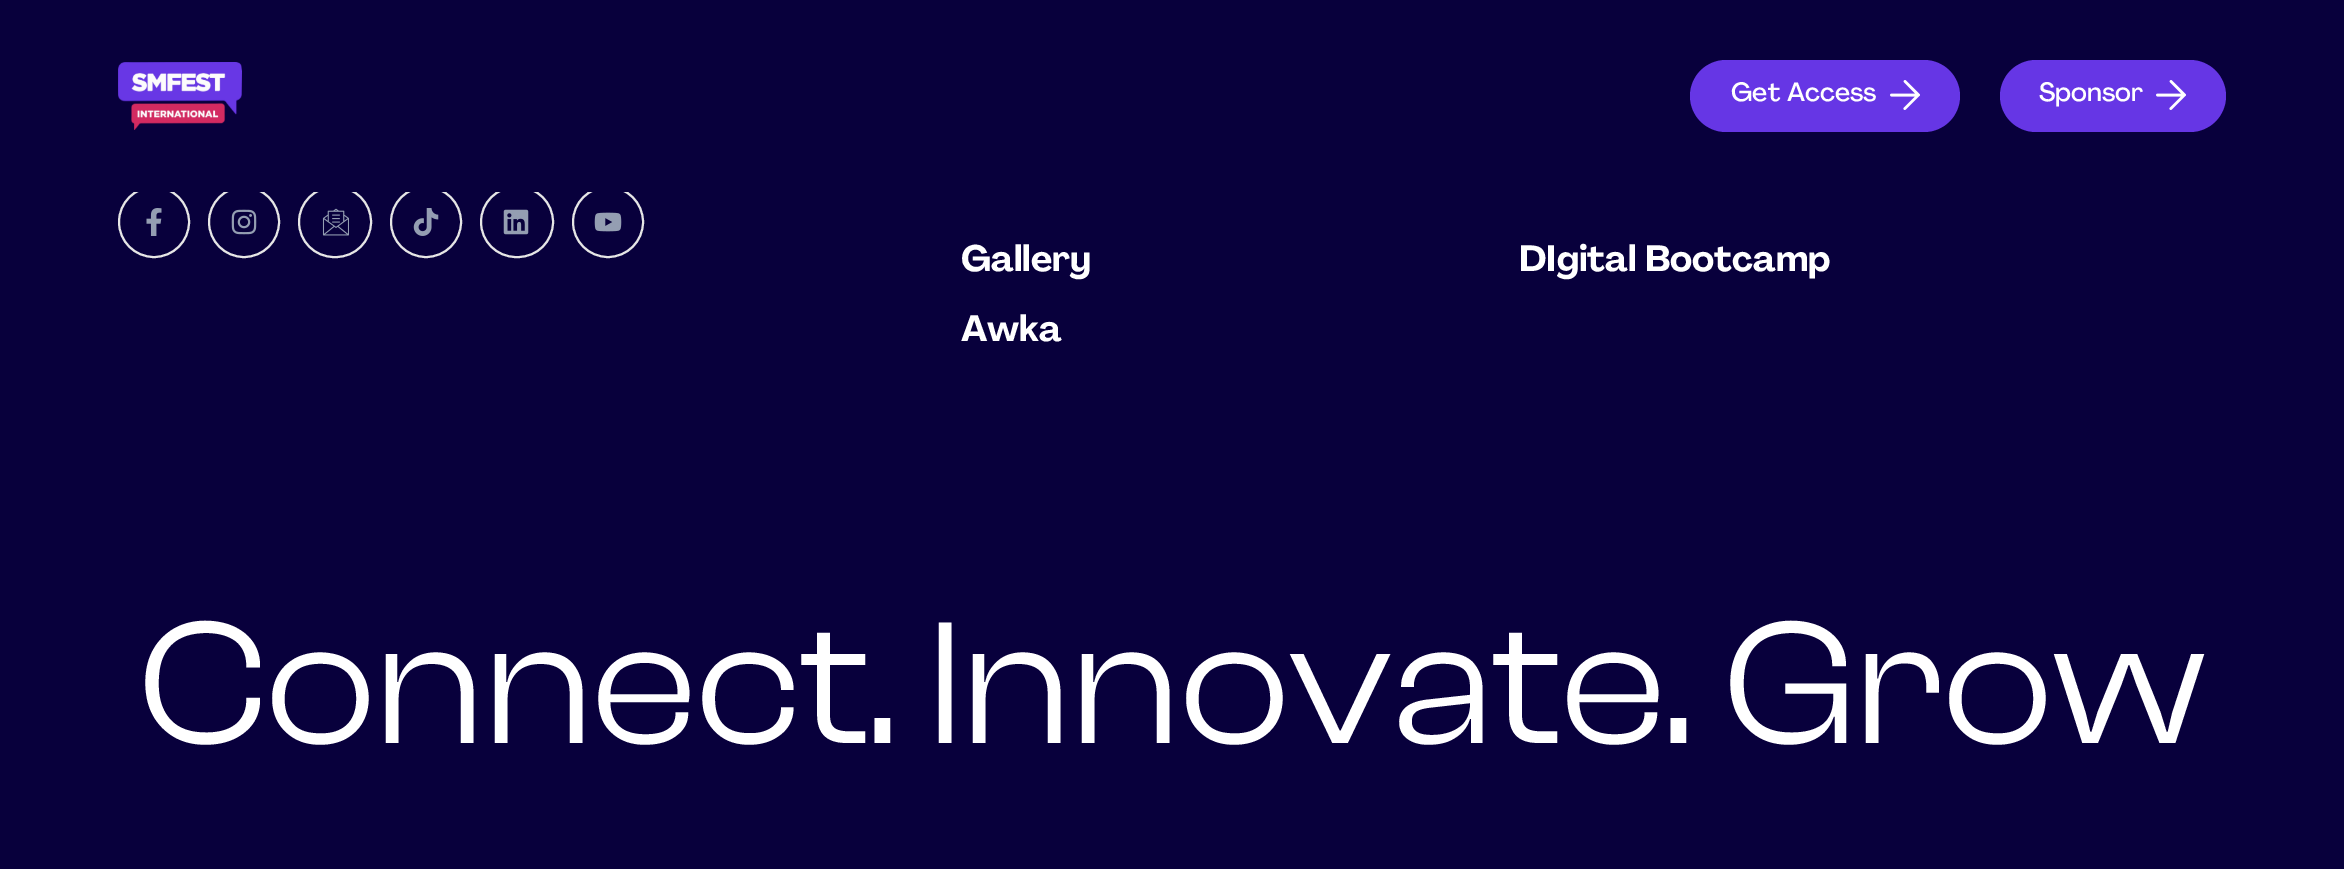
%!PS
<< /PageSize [2344 869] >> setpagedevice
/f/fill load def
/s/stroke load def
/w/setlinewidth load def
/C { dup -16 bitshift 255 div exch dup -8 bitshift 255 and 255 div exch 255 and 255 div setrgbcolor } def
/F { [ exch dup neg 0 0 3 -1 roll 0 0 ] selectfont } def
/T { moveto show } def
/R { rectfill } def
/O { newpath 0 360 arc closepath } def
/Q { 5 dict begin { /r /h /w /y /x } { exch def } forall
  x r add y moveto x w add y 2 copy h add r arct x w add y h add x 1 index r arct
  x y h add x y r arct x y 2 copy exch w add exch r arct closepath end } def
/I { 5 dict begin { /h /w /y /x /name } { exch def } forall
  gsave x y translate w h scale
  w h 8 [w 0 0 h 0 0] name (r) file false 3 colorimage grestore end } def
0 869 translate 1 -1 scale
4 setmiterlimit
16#08003C C
0 0 2344 869 R
16#E6E6E6 C
2 w
154 222 35 O s
244 222 35 O s
299 187 72 70 35 Q s
426 222 35 O s
481 187 72 70 35 Q s
608 222 35 O s
16#08003C C
134 186 494 6 R
(1.rgb) 118 62 124 68 I
16#6636E5 C
1690 60 270 72 36 Q f
/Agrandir-Medium 26 F
16#FFFFFF C
(Get Access) 1731 101 T
(2.rgb) 1890 80 30 30 I
16#6636E5 C
2000 60 226 72 36 Q f
16#FFFFFF C
(Sponsor) 2039 101 T
(2.rgb) 2156 80 30 30 I
(3.rgb) 146 208 16 28 I
(4.rgb) 231 209 26 26 I
(5.rgb) 322 208 27 28 I
(6.rgb) 413 208 26 28 I
(7.rgb) 503 209 26 26 I
(8.rgb) 594 212 28 20 I
/Agrandir-Bold 36 F
(Gallery) 961 271 T
(Awka) 961 341 T
(DIgital Bootcamp) 1519 271 T
/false-Regular 180 F
(Connect. Innovate. Grow) 139 743 T
showpage
